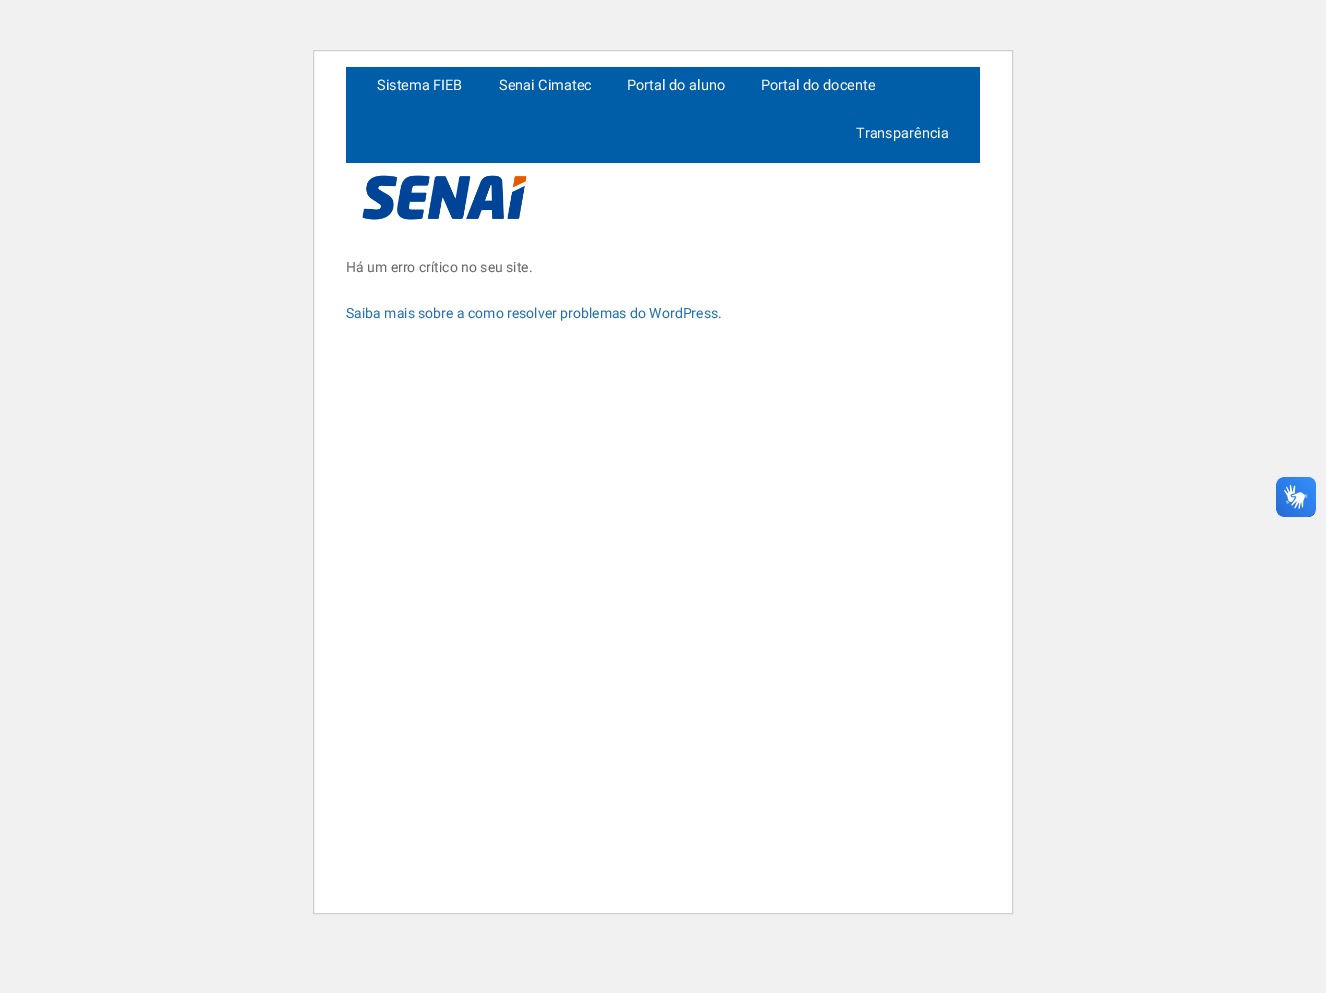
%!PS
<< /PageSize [1326 993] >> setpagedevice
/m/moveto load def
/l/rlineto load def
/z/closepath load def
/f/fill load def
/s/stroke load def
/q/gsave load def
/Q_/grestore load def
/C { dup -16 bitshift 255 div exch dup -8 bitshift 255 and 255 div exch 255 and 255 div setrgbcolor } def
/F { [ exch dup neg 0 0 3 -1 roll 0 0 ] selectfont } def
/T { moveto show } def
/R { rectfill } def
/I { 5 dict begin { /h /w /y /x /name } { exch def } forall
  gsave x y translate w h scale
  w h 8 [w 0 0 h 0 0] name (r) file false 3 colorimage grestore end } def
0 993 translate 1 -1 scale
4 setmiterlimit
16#F1F1F1 C
0 0 1326 993 R
16#FFFFFF C
313.5 50.5 m 699 0 l 0 863 l -699 0 l z q f Q_
16#CCD0D4 C
s
16#005EA9 C
346 67 634 96 R
/Roboto-Regular 14.5 F
16#FFFFFF C
(Sistema FIEB) 377 90 T
(Senai Cimatec) 499 90 T
(Portal do aluno) 627 90 T
(Portal do docente) 761 90 T
(Transparência) 856 138 T
(1.rgb) 362 175 165 45 I
/Roboto-Regular 14 F
16#696969 C
(Há um erro crítico no seu site.) 346 272 T
16#2271B1 C
(Saiba mais sobre a como resolver problemas do WordPress.) 346 318 T
(2.rgb) 1276 477 40 40 I
(3.rgb) 1276 477 40 40 I
showpage
